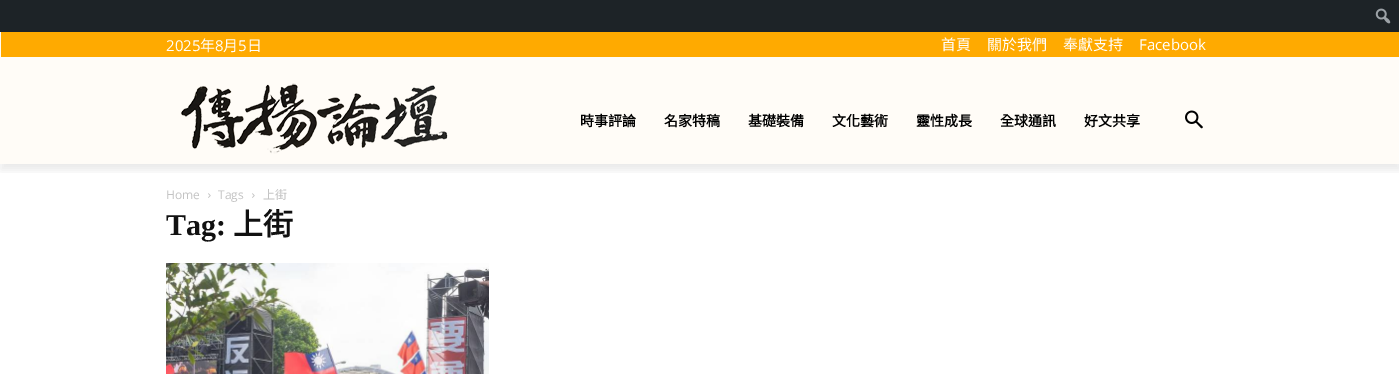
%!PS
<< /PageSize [1399 374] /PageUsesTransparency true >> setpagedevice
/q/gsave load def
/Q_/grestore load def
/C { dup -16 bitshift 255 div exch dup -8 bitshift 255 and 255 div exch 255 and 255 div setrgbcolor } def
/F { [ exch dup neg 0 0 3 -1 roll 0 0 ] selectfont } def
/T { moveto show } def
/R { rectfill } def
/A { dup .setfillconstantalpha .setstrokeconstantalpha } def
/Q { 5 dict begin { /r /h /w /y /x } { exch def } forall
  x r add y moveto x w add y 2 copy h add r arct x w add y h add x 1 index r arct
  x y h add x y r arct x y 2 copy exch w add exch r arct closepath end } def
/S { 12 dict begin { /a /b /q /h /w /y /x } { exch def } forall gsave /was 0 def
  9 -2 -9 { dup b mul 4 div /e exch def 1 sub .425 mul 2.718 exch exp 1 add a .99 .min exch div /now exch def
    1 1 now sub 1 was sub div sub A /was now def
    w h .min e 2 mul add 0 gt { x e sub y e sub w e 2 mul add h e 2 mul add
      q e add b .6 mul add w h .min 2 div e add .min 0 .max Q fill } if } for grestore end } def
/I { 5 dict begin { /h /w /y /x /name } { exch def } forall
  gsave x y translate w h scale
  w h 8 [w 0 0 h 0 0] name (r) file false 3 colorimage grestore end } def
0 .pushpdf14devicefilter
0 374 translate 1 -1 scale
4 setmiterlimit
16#FFFFFF C
0 0 1399 374 R
16#1D2327 C
0 0 1399 32 R
(1.rgb) 1375 8 16 16 I
16#FFFCF7 C
0 32 1399 132 R
16#FFAA00 C
1 32 1398 25 R
/OpenSans-Regular 15 F
16#FFFFFF C
(2025) 166 51 T
/NotoSansCJKTC-Regular 15 F
(年) 200 51 T
/OpenSans-Regular 15 F
(8) 215 51 T
/NotoSansCJKTC-Regular 15 F
(月) 223 51 T
/OpenSans-Regular 15 F
(5) 238 51 T
/NotoSansCJKTC-Regular 15 F
(日) 247 51 T
(2.rgb) 180 83 268 71 I
q
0 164 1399 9 rectclip
16#000000 C
1 63 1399 107 0 4 .08 S
Q_
(首頁) 941 50 T
(關於我們) 987 50 T
(奉獻支持) 1063 50 T
/OpenSans-Regular 15 F
(Facebook) 1139 50 T
/NotoSansCJKTC-Bold 14 F
16#000000 C
(時事評論) 580 126 T
(名家特稿) 664 126 T
(基礎裝備) 748 126 T
(文化藝術) 832 126 T
(靈性成長) 916 126 T
(全球通訊) 1000 126 T
(好文共享) 1084 126 T
(3.rgb) 1185 110 18 19 I
/OpenSans-Regular 12 F
16#C3C3C3 C
(Home) 166 199 T
(4.rgb) 208 193 3 5 I
(Tags) 218 199 T
(4.rgb) 252 193 3 5 I
/NotoSansCJKTC-Regular 12 F
(上街) 263 199 T
/LiberationSerif-Bold 30 F
16#111111 C
(Tag:) 166 235 T
/NotoSansCJKTC-Bold 30 F
(上街) 233 235 T
(5.rgb) 166 263 323 111 I
.poppdf14devicefilter showpage
